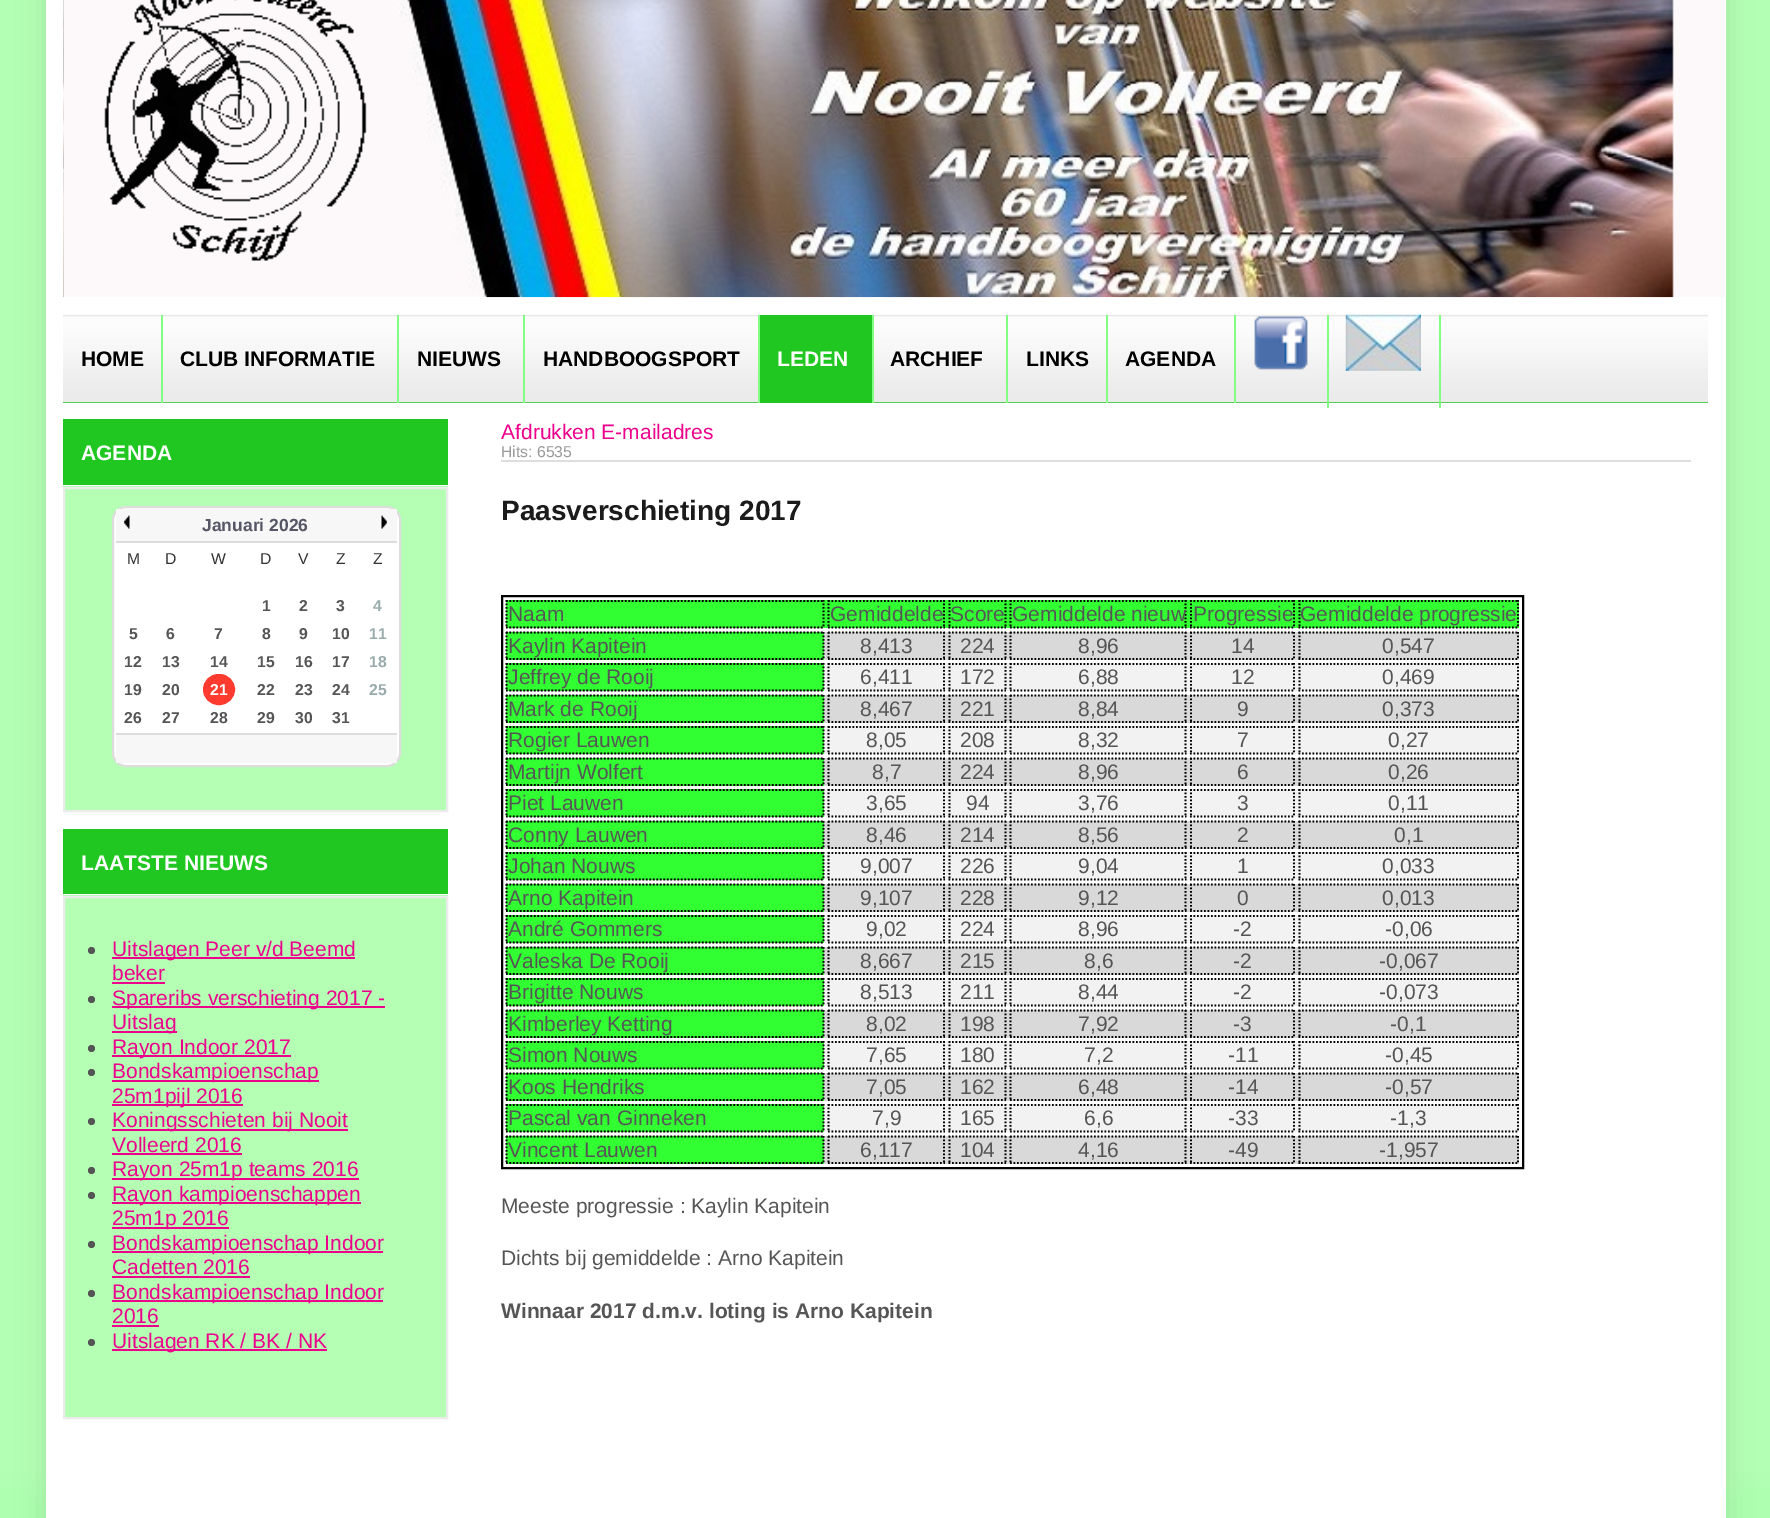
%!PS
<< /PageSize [1770 1518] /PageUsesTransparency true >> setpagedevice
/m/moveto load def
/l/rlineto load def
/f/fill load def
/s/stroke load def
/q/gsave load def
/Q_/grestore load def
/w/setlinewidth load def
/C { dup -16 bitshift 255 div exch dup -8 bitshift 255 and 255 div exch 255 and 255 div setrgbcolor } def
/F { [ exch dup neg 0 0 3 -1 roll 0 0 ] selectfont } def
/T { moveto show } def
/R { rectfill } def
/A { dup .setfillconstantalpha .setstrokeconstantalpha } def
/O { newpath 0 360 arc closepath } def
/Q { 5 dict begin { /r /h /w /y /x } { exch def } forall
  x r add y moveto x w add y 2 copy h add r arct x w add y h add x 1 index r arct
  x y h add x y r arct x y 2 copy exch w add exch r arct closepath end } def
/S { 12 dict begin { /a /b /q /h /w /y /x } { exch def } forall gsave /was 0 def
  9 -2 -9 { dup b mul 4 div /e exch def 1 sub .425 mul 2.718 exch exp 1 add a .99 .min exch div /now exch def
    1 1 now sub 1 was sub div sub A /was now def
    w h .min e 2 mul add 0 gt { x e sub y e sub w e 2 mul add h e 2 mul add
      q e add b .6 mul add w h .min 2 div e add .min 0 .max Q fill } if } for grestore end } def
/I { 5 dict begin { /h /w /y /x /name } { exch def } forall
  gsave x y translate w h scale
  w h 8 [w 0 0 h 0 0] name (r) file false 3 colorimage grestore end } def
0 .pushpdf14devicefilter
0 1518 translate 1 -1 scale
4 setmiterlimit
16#FFFFFF C
0 0 1770 1518 R
(1.rgb) 0 0 1770 1518 I
16#000000 C
46 -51 1680 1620 9 14 .1 S
16#FFFFFF C
46 0 1680 1518 R
(2.rgb) 63 0 1662 298 I
(3.rgb) 104 0 263 261 I
16#20C720 C
63 402 1645 1 R
(4.rgb) 63 314 1645 89 I
16#82FF82 C
161 315 2 88 R
/LiberationSans-Bold 21 F
16#000000 C
(HOME) 81 366 T
16#82FF82 C
397 315 2 88 R
16#000000 C
(CLUB INFORMATIE) 180 366 T
16#82FF82 C
523 315 2 88 R
16#000000 C
(NIEUWS) 417 366 T
16#82FF82 C
758 315 2 88 R
16#000000 C
(HANDBOOGSPORT) 543 366 T
16#20C720 C
760 315 112 88 R
16#82FF82 C
872 315 2 88 R
16#FFFFFF C
(LEDEN) 777 366 T
16#82FF82 C
1006 315 2 88 R
16#000000 C
(ARCHIEF) 890 366 T
16#82FF82 C
1106 315 2 88 R
16#000000 C
(LINKS) 1026 366 T
16#82FF82 C
1234 315 2 88 R
16#000000 C
(AGENDA) 1125 366 T
16#82FF82 C
1327 315 2 93 R
(5.rgb) 1254 316 54 54 I
1439 315 2 93 R
(6.rgb) 1345 314 76 57 I
16#20C720 C
63 419 385 66 R
16#FFFFFF C
(AGENDA) 81 460 T
16#B4FFB4 C
63 486 385 324 R
16#EBEBEB C
2 w
64 488 383 323 rectstroke
16#FFFFFF C
113 507 287 259 13 Q q f Q_
16#DDDDDD C
s
16#F7F7F7 C
116 509 281 32 R
16#DDDDDD C
116 541 281 2 R
(7.rgb) 124 515 6 14 I
/LiberationSans-Bold 17.5 F
16#565666 C
(Januari 2026) 202 531 T
(8.rgb) 381 515 6 14 I
/LiberationSans-Regular 15.75 F
16#333333 C
(M) 127 564 T
(D) 165 564 T
(W) 211 564 T
(D) 260 564 T
(V) 298 564 T
(Z) 336 564 T
(Z) 373 564 T
/LiberationSans-Bold 15.75 F
16#555555 C
(1) 262 611 T
(2) 299 611 T
(3) 336 611 T
16#99AAAA C
(4) 373 611 T
16#555555 C
(5) 129 639 T
(6) 166 639 T
(7) 214 639 T
(8) 262 639 T
(9) 299 639 T
(10) 332 639 T
16#99AAAA C
(11) 369 639 T
16#555555 C
(12) 124 667 T
(13) 162 667 T
(14) 210 667 T
(15) 257 667 T
(16) 295 667 T
(17) 332 667 T
16#99AAAA C
(18) 369 667 T
16#555555 C
(19) 124 695 T
(20) 162 695 T
16#FF3B30 C
204 675 30 29 14.5 Q q f Q_
s
16#FFFFFF C
(21) 210 695 T
16#555555 C
(22) 257 695 T
(23) 295 695 T
(24) 332 695 T
16#99AAAA C
(25) 369 695 T
16#555555 C
(26) 124 723 T
(27) 162 723 T
(28) 210 723 T
(29) 257 723 T
(30) 295 723 T
(31) 332 723 T
16#F7F7F7 C
116 735 281 28 R
16#DDDDDD C
116 733 281 2 R
16#20C720 C
63 829 385 65 R
/LiberationSans-Bold 21 F
16#FFFFFF C
(LAATSTE NIEUWS) 81 870 T
16#B4FFB4 C
63 895 385 522 R
16#EBEBEB C
64 897 383 521 rectstroke
16#555555 C
91.5 950.5 3.5 O f
16#EC008C C
112 957 243 2 R
/LiberationSans-Regular 21 F
(Uitslagen Peer v/d Beemd) 112 956 T
(beker) 112 980 T
112 982 53 2 R
16#555555 C
91.5 999.5 3.5 O f
16#EC008C C
112 1006 273 2 R
(Spareribs verschieting 2017 -) 112 1005 T
112 1031 65 2 R
(Uitslag) 112 1029 T
16#555555 C
91.5 1048.5 3.5 O f
16#EC008C C
112 1055 179 2 R
(Rayon Indoor 2017) 112 1054 T
16#555555 C
91.5 1072.5 3.5 O f
16#EC008C C
112 1080 207 2 R
(Bondskampioenschap) 112 1078 T
112 1104 131 2 R
(25m1pijl 2016) 112 1103 T
16#555555 C
91.5 1121.5 3.5 O f
16#EC008C C
112 1129 236 2 R
(Koningsschieten bij Nooit) 112 1127 T
(Volleerd 2016) 112 1152 T
112 1153 130 2 R
16#555555 C
91.5 1170.5 3.5 O f
16#EC008C C
112 1178 247 2 R
(Rayon 25m1p teams 2016) 112 1176 T
16#555555 C
91.5 1195.5 3.5 O f
16#EC008C C
112 1202 249 2 R
(Rayon kampioenschappen) 112 1201 T
112 1227 117 2 R
(25m1p 2016) 112 1225 T
16#555555 C
91.5 1244.5 3.5 O f
16#EC008C C
112 1251 271 2 R
(Bondskampioenschap Indoor) 112 1250 T
(Cadetten 2016) 112 1274 T
112 1276 138 2 R
16#555555 C
91.5 1293.5 3.5 O f
16#EC008C C
112 1300 271 2 R
(Bondskampioenschap Indoor) 112 1299 T
(2016) 112 1323 T
112 1325 47 2 R
16#555555 C
91.5 1342.5 3.5 O f
16#EC008C C
112 1349 215 2 R
(Uitslagen RK / BK / NK) 112 1348 T
(Afdrukken E-mailadres) 501 439 T
16#DEDEDE C
501 460 1190 2 R
/LiberationSans-Regular 15.75 F
16#999999 C
(Hits: 6535) 501 457 T
/LiberationSans-Bold 28 F
16#1B1B1B C
(Paasverschieting 2017) 501 520 T
16#000000 C
502 596 1021 572 rectstroke
16#32FF32 C
506 600 1013 28 R
16#000000 C
1.8 w
[1.75 1.75] 0 setdash
506 601 m 318 0 l s
823.5 600 m 0 28 l s
506 627.5 m 318 0 l s
506.5 600 m 0 28 l s
/LiberationSans-Regular 21 F
16#555555 C
(Naam) 508 621 T
16#000000 C
828 601 m 117 0 l s
944 600 m 0 28 l s
828 627.5 m 117 0 l s
828.5 600 m 0 28 l s
16#555555 C
(Gemiddelde) 830 621 T
16#000000 C
948.5 601 m 57.5 0 l 1005.5 600 m 0 28 l 948.5 627.5 m 57.5 0 l 949.5 600 m 0 28 l s
16#555555 C
(Score) 950 621 T
16#000000 C
1010 601 m 176.5 0 l s
1185.5 600 m 0 28 l s
1010 627.5 m 176.5 0 l s
1010.5 600 m 0 28 l s
16#555555 C
(Gemiddelde nieuw) 1012 621 T
16#000000 C
1190 601 m 105 0 l s
1294 600 m 0 28 l s
1190 627.5 m 105 0 l s
1191 600 m 0 28 l s
16#555555 C
(Progressie) 1193 621 T
16#000000 C
1298.5 601 m 220.5 0 l s
1518 600 m 0 28 l s
1298.5 627.5 m 220.5 0 l s
1299.5 600 m 0 28 l s
16#555555 C
(Gemiddelde progressie) 1300 621 T
16#D9D9D9 C
824 632 695 28 R
16#32FF32 C
506 632 318 28 R
16#000000 C
506 632.5 m 318 0 l s
823.5 632 m 0 28 l s
506 659 m 318 0 l s
506.5 632 m 0 28 l s
16#555555 C
(Kaylin Kapitein) 508 653 T
16#000000 C
828 632.5 m 117 0 l s
944 632 m 0 28 l s
828 659 m 117 0 l s
828.5 632 m 0 28 l s
16#555555 C
(8,413) 860 653 T
16#000000 C
948.5 632.5 m 57.5 0 l 1005.5 632 m 0 28 l 948.5 659 m 57.5 0 l 949.5 632 m 0 28 l s
16#555555 C
(224) 960 653 T
16#000000 C
1010 632.5 m 176.5 0 l s
1185.5 632 m 0 28 l s
1010 659 m 176.5 0 l s
1010.5 632 m 0 28 l s
16#555555 C
(8,96) 1078 653 T
16#000000 C
1190 632.5 m 105 0 l s
1294 632 m 0 28 l s
1190 659 m 105 0 l s
1191 632 m 0 28 l s
16#555555 C
(14) 1231 653 T
16#000000 C
1298.5 632.5 m 220.5 0 l s
1518 632 m 0 28 l s
1298.5 659 m 220.5 0 l s
1299.5 632 m 0 28 l s
16#555555 C
(0,547) 1382 653 T
16#F2F2F2 C
824 663 695 28 R
16#32FF32 C
506 663 318 28 R
16#000000 C
506 664 m 318 0 l s
823.5 663 m 0 28 l s
506 690.5 m 318 0 l s
506.5 663 m 0 28 l s
16#555555 C
(Jeffrey de Rooij) 508 684 T
16#000000 C
828 664 m 117 0 l s
944 663 m 0 28 l s
828 690.5 m 117 0 l s
828.5 663 m 0 28 l s
16#555555 C
(6,411) 860 684 T
16#000000 C
948.5 664 m 57.5 0 l 1005.5 663 m 0 28 l 948.5 690.5 m 57.5 0 l 949.5 663 m 0 28 l s
16#555555 C
(172) 960 684 T
16#000000 C
1010 664 m 176.5 0 l s
1185.5 663 m 0 28 l s
1010 690.5 m 176.5 0 l s
1010.5 663 m 0 28 l s
16#555555 C
(6,88) 1078 684 T
16#000000 C
1190 664 m 105 0 l s
1294 663 m 0 28 l s
1190 690.5 m 105 0 l s
1191 663 m 0 28 l s
16#555555 C
(12) 1231 684 T
16#000000 C
1298.5 664 m 220.5 0 l s
1518 663 m 0 28 l s
1298.5 690.5 m 220.5 0 l s
1299.5 663 m 0 28 l s
16#555555 C
(0,469) 1382 684 T
16#D9D9D9 C
824 695 695 28 R
16#32FF32 C
506 695 318 28 R
16#000000 C
506 695.5 m 318 0 l s
823.5 695 m 0 28 l s
506 722 m 318 0 l s
506.5 695 m 0 28 l s
16#555555 C
(Mark de Rooij) 508 716 T
16#000000 C
828 695.5 m 117 0 l s
944 695 m 0 28 l s
828 722 m 117 0 l s
828.5 695 m 0 28 l s
16#555555 C
(8,467) 860 716 T
16#000000 C
948.5 695.5 m 57.5 0 l 1005.5 695 m 0 28 l 948.5 722 m 57.5 0 l 949.5 695 m 0 28 l s
16#555555 C
(221) 960 716 T
16#000000 C
1010 695.5 m 176.5 0 l s
1185.5 695 m 0 28 l s
1010 722 m 176.5 0 l s
1010.5 695 m 0 28 l s
16#555555 C
(8,84) 1078 716 T
16#000000 C
1190 695.5 m 105 0 l s
1294 695 m 0 28 l s
1190 722 m 105 0 l s
1191 695 m 0 28 l s
16#555555 C
(9) 1237 716 T
16#000000 C
1298.5 695.5 m 220.5 0 l s
1518 695 m 0 28 l s
1298.5 722 m 220.5 0 l s
1299.5 695 m 0 28 l s
16#555555 C
(0,373) 1382 716 T
16#F2F2F2 C
824 726 695 28 R
16#32FF32 C
506 726 318 28 R
16#000000 C
506 727 m 318 0 l s
823.5 726 m 0 28 l s
506 753.5 m 318 0 l s
506.5 726 m 0 28 l s
16#555555 C
(Rogier Lauwen) 508 747 T
16#000000 C
828 727 m 117 0 l s
944 726 m 0 28 l s
828 753.5 m 117 0 l s
828.5 726 m 0 28 l s
16#555555 C
(8,05) 866 747 T
16#000000 C
948.5 727 m 57.5 0 l 1005.5 726 m 0 28 l 948.5 753.5 m 57.5 0 l 949.5 726 m 0 28 l s
16#555555 C
(208) 960 747 T
16#000000 C
1010 727 m 176.5 0 l s
1185.5 726 m 0 28 l s
1010 753.5 m 176.5 0 l s
1010.5 726 m 0 28 l s
16#555555 C
(8,32) 1078 747 T
16#000000 C
1190 727 m 105 0 l s
1294 726 m 0 28 l s
1190 753.5 m 105 0 l s
1191 726 m 0 28 l s
16#555555 C
(7) 1237 747 T
16#000000 C
1298.5 727 m 220.5 0 l s
1518 726 m 0 28 l s
1298.5 753.5 m 220.5 0 l s
1299.5 726 m 0 28 l s
16#555555 C
(0,27) 1388 747 T
16#D9D9D9 C
824 758 695 28 R
16#32FF32 C
506 758 318 28 R
16#000000 C
506 758.5 m 318 0 l s
823.5 758 m 0 28 l s
506 785 m 318 0 l s
506.5 758 m 0 28 l s
16#555555 C
(Martijn Wolfert) 508 779 T
16#000000 C
828 758.5 m 117 0 l s
944 758 m 0 28 l s
828 785 m 117 0 l s
828.5 758 m 0 28 l s
16#555555 C
(8,7) 872 779 T
16#000000 C
948.5 758.5 m 57.5 0 l 1005.5 758 m 0 28 l 948.5 785 m 57.5 0 l 949.5 758 m 0 28 l s
16#555555 C
(224) 960 779 T
16#000000 C
1010 758.5 m 176.5 0 l s
1185.5 758 m 0 28 l s
1010 785 m 176.5 0 l s
1010.5 758 m 0 28 l s
16#555555 C
(8,96) 1078 779 T
16#000000 C
1190 758.5 m 105 0 l s
1294 758 m 0 28 l s
1190 785 m 105 0 l s
1191 758 m 0 28 l s
16#555555 C
(6) 1237 779 T
16#000000 C
1298.5 758.5 m 220.5 0 l s
1518 758 m 0 28 l s
1298.5 785 m 220.5 0 l s
1299.5 758 m 0 28 l s
16#555555 C
(0,26) 1388 779 T
16#F2F2F2 C
824 789 695 28 R
16#32FF32 C
506 789 318 28 R
16#000000 C
506 790 m 318 0 l s
823.5 789 m 0 28 l s
506 816.5 m 318 0 l s
506.5 789 m 0 28 l s
16#555555 C
(Piet Lauwen) 508 810 T
16#000000 C
828 790 m 117 0 l s
944 789 m 0 28 l s
828 816.5 m 117 0 l s
828.5 789 m 0 28 l s
16#555555 C
(3,65) 866 810 T
16#000000 C
948.5 790 m 57.5 0 l 1005.5 789 m 0 28 l 948.5 816.5 m 57.5 0 l 949.5 789 m 0 28 l s
16#555555 C
(94) 966 810 T
16#000000 C
1010 790 m 176.5 0 l s
1185.5 789 m 0 28 l s
1010 816.5 m 176.5 0 l s
1010.5 789 m 0 28 l s
16#555555 C
(3,76) 1078 810 T
16#000000 C
1190 790 m 105 0 l s
1294 789 m 0 28 l s
1190 816.5 m 105 0 l s
1191 789 m 0 28 l s
16#555555 C
(3) 1237 810 T
16#000000 C
1298.5 790 m 220.5 0 l s
1518 789 m 0 28 l s
1298.5 816.5 m 220.5 0 l s
1299.5 789 m 0 28 l s
16#555555 C
(0,11) 1388 810 T
16#D9D9D9 C
824 821 695 28 R
16#32FF32 C
506 821 318 28 R
16#000000 C
506 821.5 m 318 0 l s
823.5 821 m 0 28 l s
506 848 m 318 0 l s
506.5 821 m 0 28 l s
16#555555 C
(Conny Lauwen) 508 842 T
16#000000 C
828 821.5 m 117 0 l s
944 821 m 0 28 l s
828 848 m 117 0 l s
828.5 821 m 0 28 l s
16#555555 C
(8,46) 866 842 T
16#000000 C
948.5 821.5 m 57.5 0 l 1005.5 821 m 0 28 l 948.5 848 m 57.5 0 l 949.5 821 m 0 28 l s
16#555555 C
(214) 960 842 T
16#000000 C
1010 821.5 m 176.5 0 l s
1185.5 821 m 0 28 l s
1010 848 m 176.5 0 l s
1010.5 821 m 0 28 l s
16#555555 C
(8,56) 1078 842 T
16#000000 C
1190 821.5 m 105 0 l s
1294 821 m 0 28 l s
1190 848 m 105 0 l s
1191 821 m 0 28 l s
16#555555 C
(2) 1237 842 T
16#000000 C
1298.5 821.5 m 220.5 0 l s
1518 821 m 0 28 l s
1298.5 848 m 220.5 0 l s
1299.5 821 m 0 28 l s
16#555555 C
(0,1) 1394 842 T
16#F2F2F2 C
824 852 695 28 R
16#32FF32 C
506 852 318 28 R
16#000000 C
506 853 m 318 0 l s
823.5 852 m 0 28 l s
506 879.5 m 318 0 l s
506.5 852 m 0 28 l s
16#555555 C
(Johan Nouws) 508 873 T
16#000000 C
828 853 m 117 0 l s
944 852 m 0 28 l s
828 879.5 m 117 0 l s
828.5 852 m 0 28 l s
16#555555 C
(9,007) 860 873 T
16#000000 C
948.5 853 m 57.5 0 l 1005.5 852 m 0 28 l 948.5 879.5 m 57.5 0 l 949.5 852 m 0 28 l s
16#555555 C
(226) 960 873 T
16#000000 C
1010 853 m 176.5 0 l s
1185.5 852 m 0 28 l s
1010 879.5 m 176.5 0 l s
1010.5 852 m 0 28 l s
16#555555 C
(9,04) 1078 873 T
16#000000 C
1190 853 m 105 0 l s
1294 852 m 0 28 l s
1190 879.5 m 105 0 l s
1191 852 m 0 28 l s
16#555555 C
(1) 1237 873 T
16#000000 C
1298.5 853 m 220.5 0 l s
1518 852 m 0 28 l s
1298.5 879.5 m 220.5 0 l s
1299.5 852 m 0 28 l s
16#555555 C
(0,033) 1382 873 T
16#D9D9D9 C
824 884 695 28 R
16#32FF32 C
506 884 318 28 R
16#000000 C
506 884.5 m 318 0 l s
823.5 884 m 0 28 l s
506 911 m 318 0 l s
506.5 884 m 0 28 l s
16#555555 C
(Arno Kapitein) 508 905 T
16#000000 C
828 884.5 m 117 0 l s
944 884 m 0 28 l s
828 911 m 117 0 l s
828.5 884 m 0 28 l s
16#555555 C
(9,107) 860 905 T
16#000000 C
948.5 884.5 m 57.5 0 l 1005.5 884 m 0 28 l 948.5 911 m 57.5 0 l 949.5 884 m 0 28 l s
16#555555 C
(228) 960 905 T
16#000000 C
1010 884.5 m 176.5 0 l s
1185.5 884 m 0 28 l s
1010 911 m 176.5 0 l s
1010.5 884 m 0 28 l s
16#555555 C
(9,12) 1078 905 T
16#000000 C
1190 884.5 m 105 0 l s
1294 884 m 0 28 l s
1190 911 m 105 0 l s
1191 884 m 0 28 l s
16#555555 C
(0) 1237 905 T
16#000000 C
1298.5 884.5 m 220.5 0 l s
1518 884 m 0 28 l s
1298.5 911 m 220.5 0 l s
1299.5 884 m 0 28 l s
16#555555 C
(0,013) 1382 905 T
16#F2F2F2 C
824 915 695 28 R
16#32FF32 C
506 915 318 28 R
16#000000 C
506 916 m 318 0 l s
823.5 915 m 0 28 l s
506 942.5 m 318 0 l s
506.5 915 m 0 28 l s
16#555555 C
(André Gommers) 508 936 T
16#000000 C
828 916 m 117 0 l s
944 915 m 0 28 l s
828 942.5 m 117 0 l s
828.5 915 m 0 28 l s
16#555555 C
(9,02) 866 936 T
16#000000 C
948.5 916 m 57.5 0 l 1005.5 915 m 0 28 l 948.5 942.5 m 57.5 0 l 949.5 915 m 0 28 l s
16#555555 C
(224) 960 936 T
16#000000 C
1010 916 m 176.5 0 l s
1185.5 915 m 0 28 l s
1010 942.5 m 176.5 0 l s
1010.5 915 m 0 28 l s
16#555555 C
(8,96) 1078 936 T
16#000000 C
1190 916 m 105 0 l s
1294 915 m 0 28 l s
1190 942.5 m 105 0 l s
1191 915 m 0 28 l s
16#555555 C
(-2) 1233 936 T
16#000000 C
1298.5 916 m 220.5 0 l s
1518 915 m 0 28 l s
1298.5 942.5 m 220.5 0 l s
1299.5 915 m 0 28 l s
16#555555 C
(-0,06) 1385 936 T
16#D9D9D9 C
824 947 695 28 R
16#32FF32 C
506 947 318 28 R
16#000000 C
506 947.5 m 318 0 l s
823.5 947 m 0 28 l s
506 974 m 318 0 l s
506.5 947 m 0 28 l s
16#555555 C
(Valeska De Rooij) 508 968 T
16#000000 C
828 947.5 m 117 0 l s
944 947 m 0 28 l s
828 974 m 117 0 l s
828.5 947 m 0 28 l s
16#555555 C
(8,667) 860 968 T
16#000000 C
948.5 947.5 m 57.5 0 l 1005.5 947 m 0 28 l 948.5 974 m 57.5 0 l 949.5 947 m 0 28 l s
16#555555 C
(215) 960 968 T
16#000000 C
1010 947.5 m 176.5 0 l s
1185.5 947 m 0 28 l s
1010 974 m 176.5 0 l s
1010.5 947 m 0 28 l s
16#555555 C
(8,6) 1084 968 T
16#000000 C
1190 947.5 m 105 0 l s
1294 947 m 0 28 l s
1190 974 m 105 0 l s
1191 947 m 0 28 l s
16#555555 C
(-2) 1233 968 T
16#000000 C
1298.5 947.5 m 220.5 0 l s
1518 947 m 0 28 l s
1298.5 974 m 220.5 0 l s
1299.5 947 m 0 28 l s
16#555555 C
(-0,067) 1379 968 T
16#F2F2F2 C
824 978 695 28 R
16#32FF32 C
506 978 318 28 R
16#000000 C
506 979 m 318 0 l s
823.5 978 m 0 28 l s
506 1005.5 m 318 0 l s
506.5 978 m 0 28 l s
16#555555 C
(Brigitte Nouws) 508 999 T
16#000000 C
828 979 m 117 0 l s
944 978 m 0 28 l s
828 1005.5 m 117 0 l s
828.5 978 m 0 28 l s
16#555555 C
(8,513) 860 999 T
16#000000 C
948.5 979 m 57.5 0 l 1005.5 978 m 0 28 l 948.5 1005.5 m 57.5 0 l 949.5 978 m 0 28 l s
16#555555 C
(211) 960 999 T
16#000000 C
1010 979 m 176.5 0 l s
1185.5 978 m 0 28 l s
1010 1005.5 m 176.5 0 l s
1010.5 978 m 0 28 l s
16#555555 C
(8,44) 1078 999 T
16#000000 C
1190 979 m 105 0 l s
1294 978 m 0 28 l s
1190 1005.5 m 105 0 l s
1191 978 m 0 28 l s
16#555555 C
(-2) 1233 999 T
16#000000 C
1298.5 979 m 220.5 0 l s
1518 978 m 0 28 l s
1298.5 1005.5 m 220.5 0 l s
1299.5 978 m 0 28 l s
16#555555 C
(-0,073) 1379 999 T
16#D9D9D9 C
824 1010 695 28 R
16#32FF32 C
506 1010 318 28 R
16#000000 C
506 1010.5 m 318 0 l s
823.5 1010 m 0 28 l s
506 1037 m 318 0 l s
506.5 1010 m 0 28 l s
16#555555 C
(Kimberley Ketting) 508 1031 T
16#000000 C
828 1010.5 m 117 0 l s
944 1010 m 0 28 l s
828 1037 m 117 0 l s
828.5 1010 m 0 28 l s
16#555555 C
(8,02) 866 1031 T
16#000000 C
948.5 1010.5 m 57.5 0 l 1005.5 1010 m 0 28 l 948.5 1037 m 57.5 0 l 949.5 1010 m 0 28 l s
16#555555 C
(198) 960 1031 T
16#000000 C
1010 1010.5 m 176.5 0 l s
1185.5 1010 m 0 28 l s
1010 1037 m 176.5 0 l s
1010.5 1010 m 0 28 l s
16#555555 C
(7,92) 1078 1031 T
16#000000 C
1190 1010.5 m 105 0 l s
1294 1010 m 0 28 l s
1190 1037 m 105 0 l s
1191 1010 m 0 28 l s
16#555555 C
(-3) 1233 1031 T
16#000000 C
1298.5 1010.5 m 220.5 0 l s
1518 1010 m 0 28 l s
1298.5 1037 m 220.5 0 l s
1299.5 1010 m 0 28 l s
16#555555 C
(-0,1) 1390 1031 T
16#F2F2F2 C
824 1041 695 28 R
16#32FF32 C
506 1041 318 28 R
16#000000 C
506 1042 m 318 0 l s
823.5 1041 m 0 28 l s
506 1068.5 m 318 0 l s
506.5 1041 m 0 28 l s
16#555555 C
(Simon Nouws) 508 1062 T
16#000000 C
828 1042 m 117 0 l s
944 1041 m 0 28 l s
828 1068.5 m 117 0 l s
828.5 1041 m 0 28 l s
16#555555 C
(7,65) 866 1062 T
16#000000 C
948.5 1042 m 57.5 0 l 1005.5 1041 m 0 28 l 948.5 1068.5 m 57.5 0 l 949.5 1041 m 0 28 l s
16#555555 C
(180) 960 1062 T
16#000000 C
1010 1042 m 176.5 0 l s
1185.5 1041 m 0 28 l s
1010 1068.5 m 176.5 0 l s
1010.5 1041 m 0 28 l s
16#555555 C
(7,2) 1084 1062 T
16#000000 C
1190 1042 m 105 0 l s
1294 1041 m 0 28 l s
1190 1068.5 m 105 0 l s
1191 1041 m 0 28 l s
16#555555 C
(-11) 1228 1062 T
16#000000 C
1298.5 1042 m 220.5 0 l s
1518 1041 m 0 28 l s
1298.5 1068.5 m 220.5 0 l s
1299.5 1041 m 0 28 l s
16#555555 C
(-0,45) 1385 1062 T
16#D9D9D9 C
824 1073 695 28 R
16#32FF32 C
506 1073 318 28 R
16#000000 C
506 1073.5 m 318 0 l s
823.5 1073 m 0 28 l s
506 1100 m 318 0 l s
506.5 1073 m 0 28 l s
16#555555 C
(Koos Hendriks) 508 1094 T
16#000000 C
828 1073.5 m 117 0 l s
944 1073 m 0 28 l s
828 1100 m 117 0 l s
828.5 1073 m 0 28 l s
16#555555 C
(7,05) 866 1094 T
16#000000 C
948.5 1073.5 m 57.5 0 l 1005.5 1073 m 0 28 l 948.5 1100 m 57.5 0 l 949.5 1073 m 0 28 l s
16#555555 C
(162) 960 1094 T
16#000000 C
1010 1073.5 m 176.5 0 l s
1185.5 1073 m 0 28 l s
1010 1100 m 176.5 0 l s
1010.5 1073 m 0 28 l s
16#555555 C
(6,48) 1078 1094 T
16#000000 C
1190 1073.5 m 105 0 l s
1294 1073 m 0 28 l s
1190 1100 m 105 0 l s
1191 1073 m 0 28 l s
16#555555 C
(-14) 1228 1094 T
16#000000 C
1298.5 1073.5 m 220.5 0 l s
1518 1073 m 0 28 l s
1298.5 1100 m 220.5 0 l s
1299.5 1073 m 0 28 l s
16#555555 C
(-0,57) 1385 1094 T
16#F2F2F2 C
824 1104 695 28 R
16#32FF32 C
506 1104 318 28 R
16#000000 C
506 1105 m 318 0 l s
823.5 1104 m 0 28 l s
506 1131.5 m 318 0 l s
506.5 1104 m 0 28 l s
16#555555 C
(Pascal van Ginneken) 508 1125 T
16#000000 C
828 1105 m 117 0 l s
944 1104 m 0 28 l s
828 1131.5 m 117 0 l s
828.5 1104 m 0 28 l s
16#555555 C
(7,9) 872 1125 T
16#000000 C
948.5 1105 m 57.5 0 l 1005.5 1104 m 0 28 l 948.5 1131.5 m 57.5 0 l 949.5 1104 m 0 28 l s
16#555555 C
(165) 960 1125 T
16#000000 C
1010 1105 m 176.5 0 l s
1185.5 1104 m 0 28 l s
1010 1131.5 m 176.5 0 l s
1010.5 1104 m 0 28 l s
16#555555 C
(6,6) 1084 1125 T
16#000000 C
1190 1105 m 105 0 l s
1294 1104 m 0 28 l s
1190 1131.5 m 105 0 l s
1191 1104 m 0 28 l s
16#555555 C
(-33) 1228 1125 T
16#000000 C
1298.5 1105 m 220.5 0 l s
1518 1104 m 0 28 l s
1298.5 1131.5 m 220.5 0 l s
1299.5 1104 m 0 28 l s
16#555555 C
(-1,3) 1390 1125 T
16#D9D9D9 C
824 1136 695 28 R
16#32FF32 C
506 1136 318 28 R
16#000000 C
506 1136.5 m 318 0 l s
823.5 1136 m 0 28 l s
506 1163 m 318 0 l s
506.5 1136 m 0 28 l s
16#555555 C
(Vincent Lauwen) 508 1157 T
16#000000 C
828 1136.5 m 117 0 l s
944 1136 m 0 28 l s
828 1163 m 117 0 l s
828.5 1136 m 0 28 l s
16#555555 C
(6,117) 860 1157 T
16#000000 C
948.5 1136.5 m 57.5 0 l 1005.5 1136 m 0 28 l 948.5 1163 m 57.5 0 l 949.5 1136 m 0 28 l s
16#555555 C
(104) 960 1157 T
16#000000 C
1010 1136.5 m 176.5 0 l s
1185.5 1136 m 0 28 l s
1010 1163 m 176.5 0 l s
1010.5 1136 m 0 28 l s
16#555555 C
(4,16) 1078 1157 T
16#000000 C
1190 1136.5 m 105 0 l s
1294 1136 m 0 28 l s
1190 1163 m 105 0 l s
1191 1136 m 0 28 l s
16#555555 C
(-49) 1228 1157 T
16#000000 C
1298.5 1136.5 m 220.5 0 l s
1518 1136 m 0 28 l s
1298.5 1163 m 220.5 0 l s
1299.5 1136 m 0 28 l s
16#555555 C
(-1,957) 1379 1157 T
(Meeste progressie : Kaylin Kapitein) 501 1213 T
(Dichts bij gemiddelde : Arno Kapitein) 501 1265 T
/LiberationSans-Bold 21 F
(Winnaar 2017 d.m.v. loting is Arno Kapitein) 501 1318 T
.poppdf14devicefilter showpage
